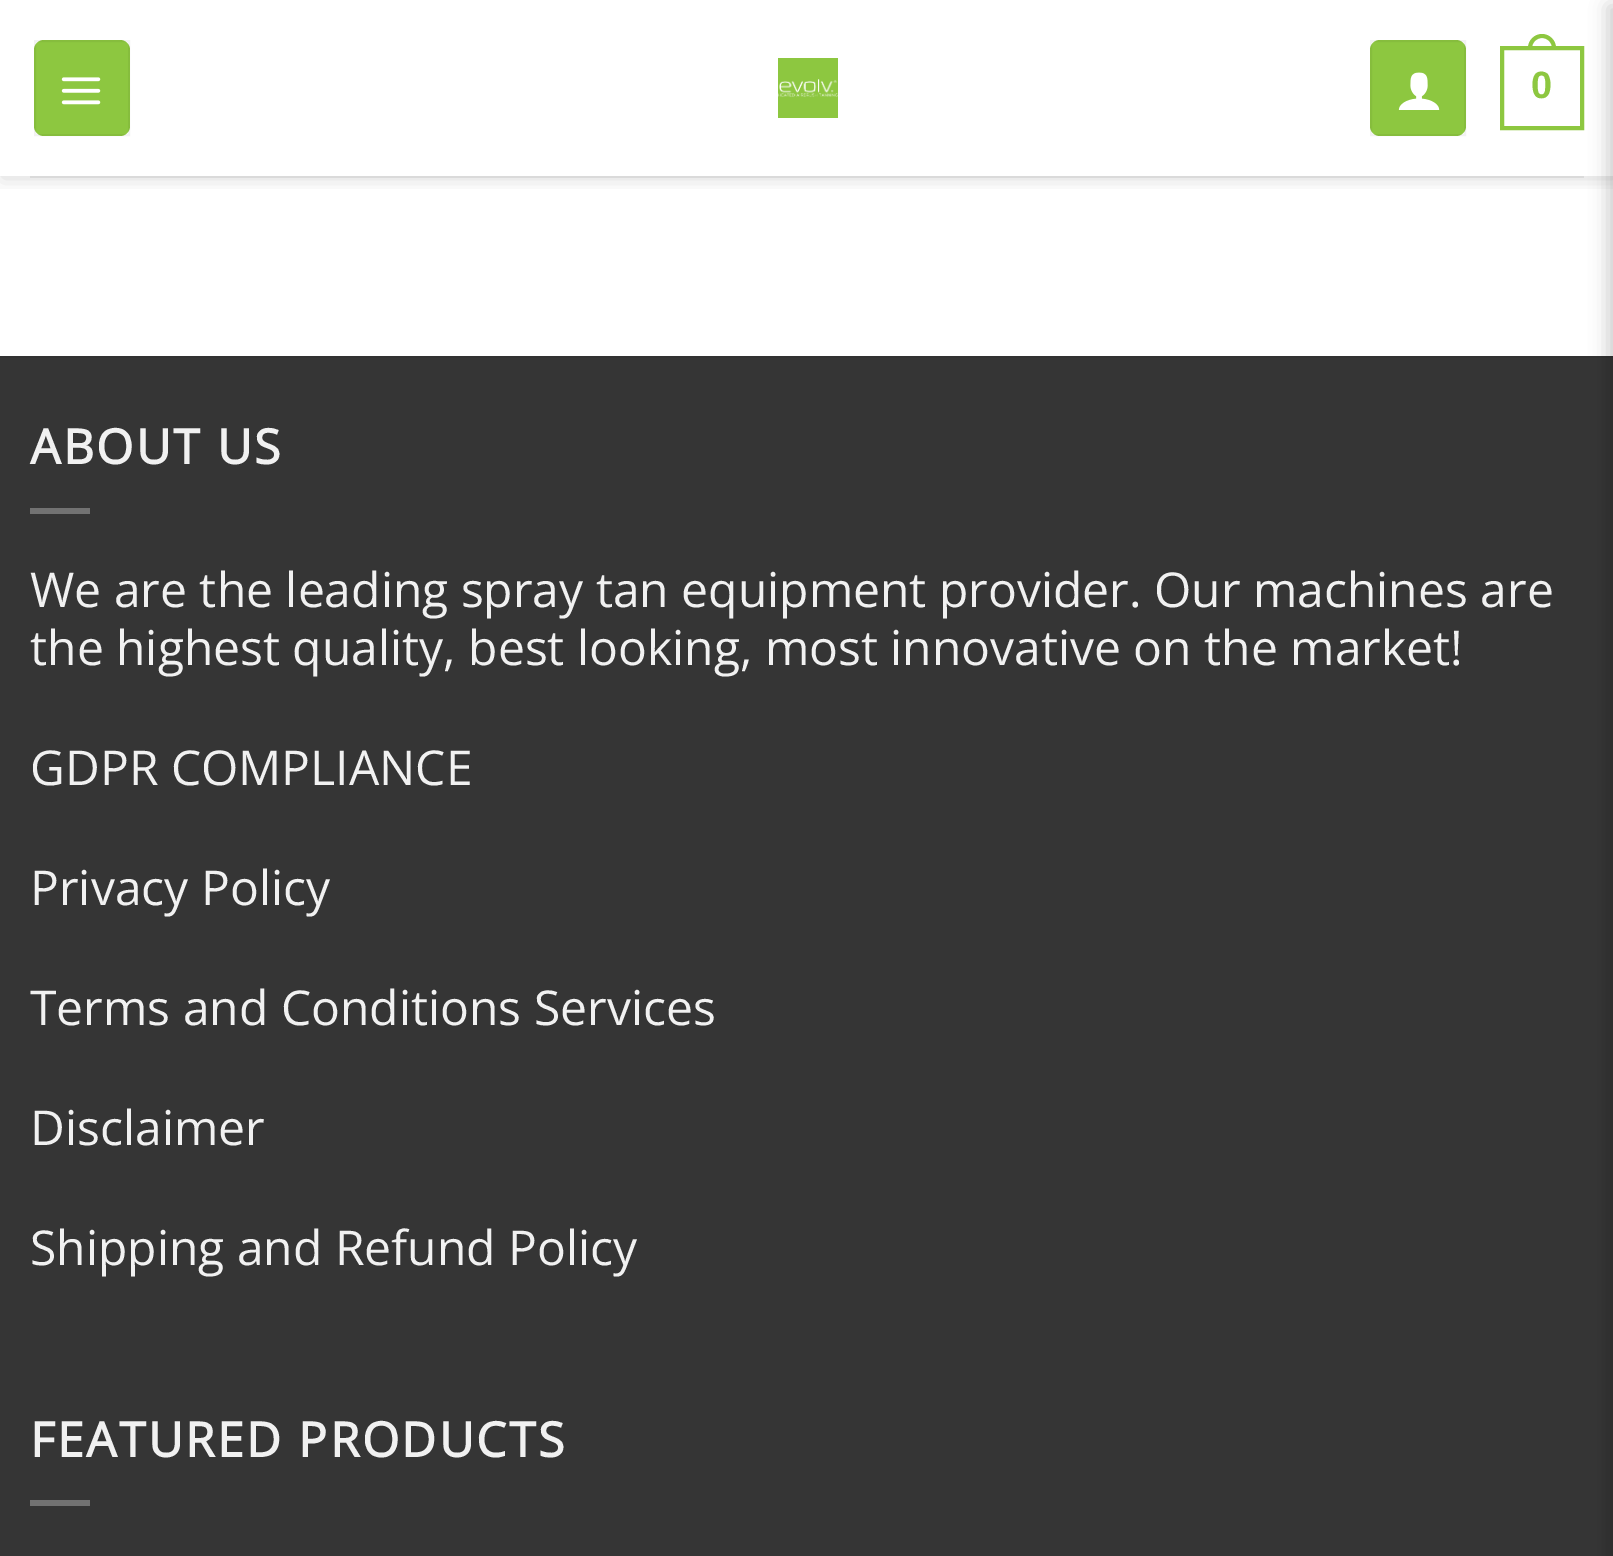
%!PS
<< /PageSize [1613 1556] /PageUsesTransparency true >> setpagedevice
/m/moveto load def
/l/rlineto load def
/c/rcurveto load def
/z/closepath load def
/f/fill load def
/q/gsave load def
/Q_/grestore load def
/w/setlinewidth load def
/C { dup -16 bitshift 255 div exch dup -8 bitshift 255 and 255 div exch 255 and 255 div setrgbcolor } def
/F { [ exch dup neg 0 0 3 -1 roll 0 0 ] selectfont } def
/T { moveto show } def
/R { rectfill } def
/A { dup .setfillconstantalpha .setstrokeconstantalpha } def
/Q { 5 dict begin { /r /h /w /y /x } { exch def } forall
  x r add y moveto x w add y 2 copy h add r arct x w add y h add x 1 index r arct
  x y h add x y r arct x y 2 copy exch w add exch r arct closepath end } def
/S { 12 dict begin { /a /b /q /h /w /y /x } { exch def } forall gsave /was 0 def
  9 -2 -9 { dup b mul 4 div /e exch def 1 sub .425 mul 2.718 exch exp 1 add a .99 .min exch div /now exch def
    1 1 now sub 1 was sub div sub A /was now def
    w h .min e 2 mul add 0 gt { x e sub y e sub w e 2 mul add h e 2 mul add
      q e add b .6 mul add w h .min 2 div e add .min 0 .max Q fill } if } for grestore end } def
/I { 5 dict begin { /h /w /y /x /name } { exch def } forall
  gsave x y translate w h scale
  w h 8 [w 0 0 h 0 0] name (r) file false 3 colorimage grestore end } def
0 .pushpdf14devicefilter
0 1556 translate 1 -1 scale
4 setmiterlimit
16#FFFFFF C
0 0 1613 1556 R
q
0 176 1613 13 rectclip
16#000000 C
2 2 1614 176 0 10 .15 S
Q_
16#8DC740 C
34 40 96 96 10 Q f
0.05 A
16#000000 C
2 w
35 41 94 94 rectstroke
1 A
(1.rgb) 61 77 40 28 I
(2.rgb) 778 58 60 60 I
16#8DC740 C
1370 40 96 96 10 Q f
0.05 A
16#000000 C
1371 41 94 94 rectstroke
1 A
(3.rgb) 1398 72 42 38 I
16#8DC740 C
4 w
1502 48 80 80 rectstroke
1542 34 m 7.5 0 14 6.5 14 14 c 0 2 l -28 0 l 0 -2 l 0 -7.5 6.5 -14 14 -14 c z 1542 38 m 5.5 0 10 4.5 10 10 c 0 2 l -20 0 l 0 -2 l 0 -5.5 4.5 -10 10 -10 c z eofill
/LiberationSans-Bold 38 F
(0) 1531 98 T
16#DADADA C
30 176 1554 2 R
16#353535 C
0 358 1613 1198 R
16#323232 C
0 356 1613 2 R
/OpenSans-Bold 48 F
16#F1F1F1 C
30 464 m 2.4 0 (ABOUT US) ashow
16#727272 C
30 508 60 6 R
/OpenSans-Regular 48 F
16#F1F1F1 C
(We are the leading spray tan equipment provider. Our machines are) 30 607 T
(the highest quality, best looking, most innovative on the market!) 30 665 T
(GDPR COMPLIANCE) 30 785 T
(Privacy Policy) 30 905 T
(Terms and Conditions Services) 30 1025 T
(Disclaimer) 30 1145 T
(Shipping and Refund Policy) 30 1265 T
/OpenSans-Bold 48 F
30 1457 m 2.4 0 (FEATURED PRODUCTS) ashow
16#727272 C
30 1500 60 6 R
16#000000 C
1608 6 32 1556 0 9 .2 S
.poppdf14devicefilter showpage
